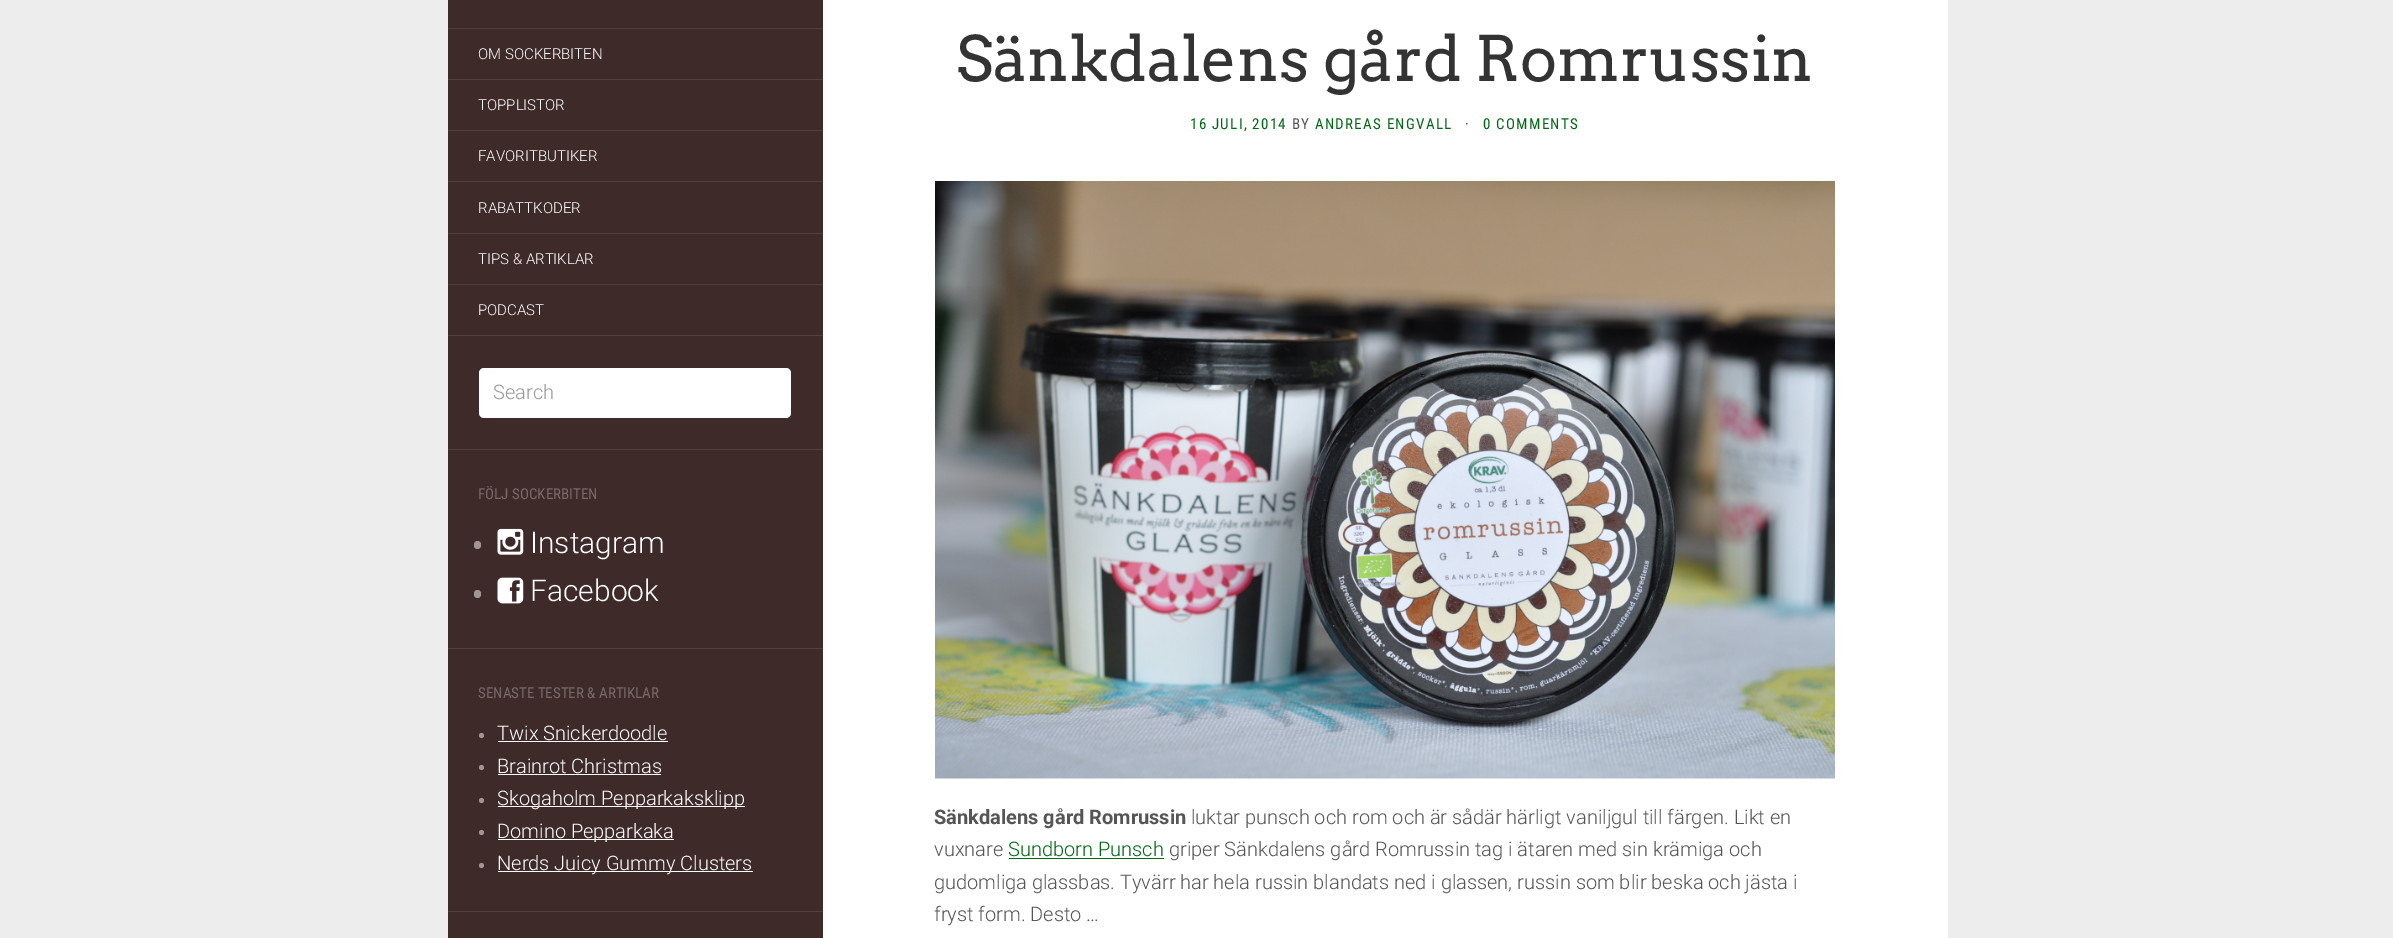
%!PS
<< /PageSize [2393 938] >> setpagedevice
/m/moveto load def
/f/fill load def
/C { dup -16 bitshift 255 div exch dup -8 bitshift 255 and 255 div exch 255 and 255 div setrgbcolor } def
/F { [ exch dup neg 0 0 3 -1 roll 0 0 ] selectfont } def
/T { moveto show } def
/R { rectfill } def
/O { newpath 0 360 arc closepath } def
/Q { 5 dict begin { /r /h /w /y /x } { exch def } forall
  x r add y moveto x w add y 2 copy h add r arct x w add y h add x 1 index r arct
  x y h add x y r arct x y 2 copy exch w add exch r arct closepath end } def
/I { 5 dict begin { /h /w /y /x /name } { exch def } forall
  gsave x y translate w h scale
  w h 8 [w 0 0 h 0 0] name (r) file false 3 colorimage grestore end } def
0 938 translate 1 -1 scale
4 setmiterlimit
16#EDEDED C
0 0 2393 938 R
16#FFFFFF C
823 0 1125 938 R
16#3F2A2A C
448 0 375 938 R
16#523F3F C
448 28 375 1 R
448 79 375 1 R
/Roboto-Light 15 F
16#FFFFFF C
(OM SOCKERBITEN) 478 59 T
16#523F3F C
448 130 375 1 R
16#FFFFFF C
(TOPPLISTOR) 478 110 T
16#523F3F C
448 181 375 1 R
16#FFFFFF C
(FAVORITBUTIKER) 478 161 T
16#523F3F C
448 233 375 1 R
16#FFFFFF C
(RABATTKODER) 478 213 T
16#523F3F C
448 284 375 1 R
16#FFFFFF C
(TIPS & ARTIKLAR) 478 264 T
16#523F3F C
448 335 375 1 R
16#FFFFFF C
(PODCAST) 478 315 T
16#523F3F C
448 449 375 1 R
16#FFFFFF C
479 368 312 50 5 Q f
/Roboto-Light 20 F
16#999999 C
(Search) 493 399 T
16#523F3F C
448 648 375 1 R
/RobotoCondensed-Regular 15 F
16#796A6A C
(FÖLJ SOCKERBITEN) 478 499 T
16#9F9595 C
474 541 7 8 3.5 Q f
(1.rgb) 497 528 27 27 I
/Roboto-Light 30 F
16#FFFFFF C
(Instagram) 530 553 T
16#9F9595 C
474 590 7 8 3.5 Q f
(2.rgb) 497 577 27 27 I
16#FFFFFF C
(Facebook) 530 601 T
16#523F3F C
448 911 375 1 R
/RobotoCondensed-Regular 15 F
16#796A6A C
(SENASTE TESTER & ARTIKLAR) 478 698 T
16#9F9595 C
481.5 735.5 2.5 O f
/Roboto-Light 20 F
16#FFFFFF C
(Twix Snickerdoodle) 497 740 T
498 741 170 1 R
16#9F9595 C
481.5 767.5 2.5 O f
16#FFFFFF C
(Brainrot Christmas) 497 773 T
498 774 163 1 R
16#9F9595 C
481.5 800.5 2.5 O f
16#FFFFFF C
498 806 247 1 R
(Skogaholm Pepparkaksklipp) 497 805 T
16#9F9595 C
481.5 832.5 2.5 O f
16#FFFFFF C
498 839 176 1 R
(Domino Pepparkaka) 497 838 T
16#9F9595 C
481.5 865.5 2.5 O f
16#FFFFFF C
498 871 255 1 R
(Nerds Juicy Gummy Clusters) 497 870 T
/Arvo-Regular 62.5 F
16#333333 C
(Sänkdalens gård Romrussin) 956 81 T
/RobotoCondensed-Regular 15 F
16#006712 C
1190 129 m 1.25 0 (16 JULI, 2014) ashow
16#555555 C
1292 129 m 1.25 0 (BY) ashow
16#006712 C
1315 129 m 1.25 0 (ANDREAS ENGVALL) ashow
16#555555 C
1465 129 m 1.25 0 (·) ashow
16#006712 C
1483 129 m 1.25 0 (0 COMMENTS) ashow
(3.rgb) 935 181 900 598 I
/Roboto-Bold 20 F
16#555555 C
(Sänkdalens gård Romrussin) 934 824 T
/Roboto-Light 20 F
(luktar punsch och rom och är sådär härligt vaniljgul till färgen. Likt en) 1191 824 T
(vuxnare) 934 856 T
16#006712 C
(Sundborn Punsch) 1008 856 T
1009 858 155 1 R
16#555555 C
(griper Sänkdalens gård Romrussin tag i ätaren med sin krämiga och) 1169 856 T
(gudomliga glassbas. Tyvärr har hela russin blandats ned i glassen, russin som blir beska och jästa i) 934 889 T
(fryst form. Desto …) 934 921 T
showpage
